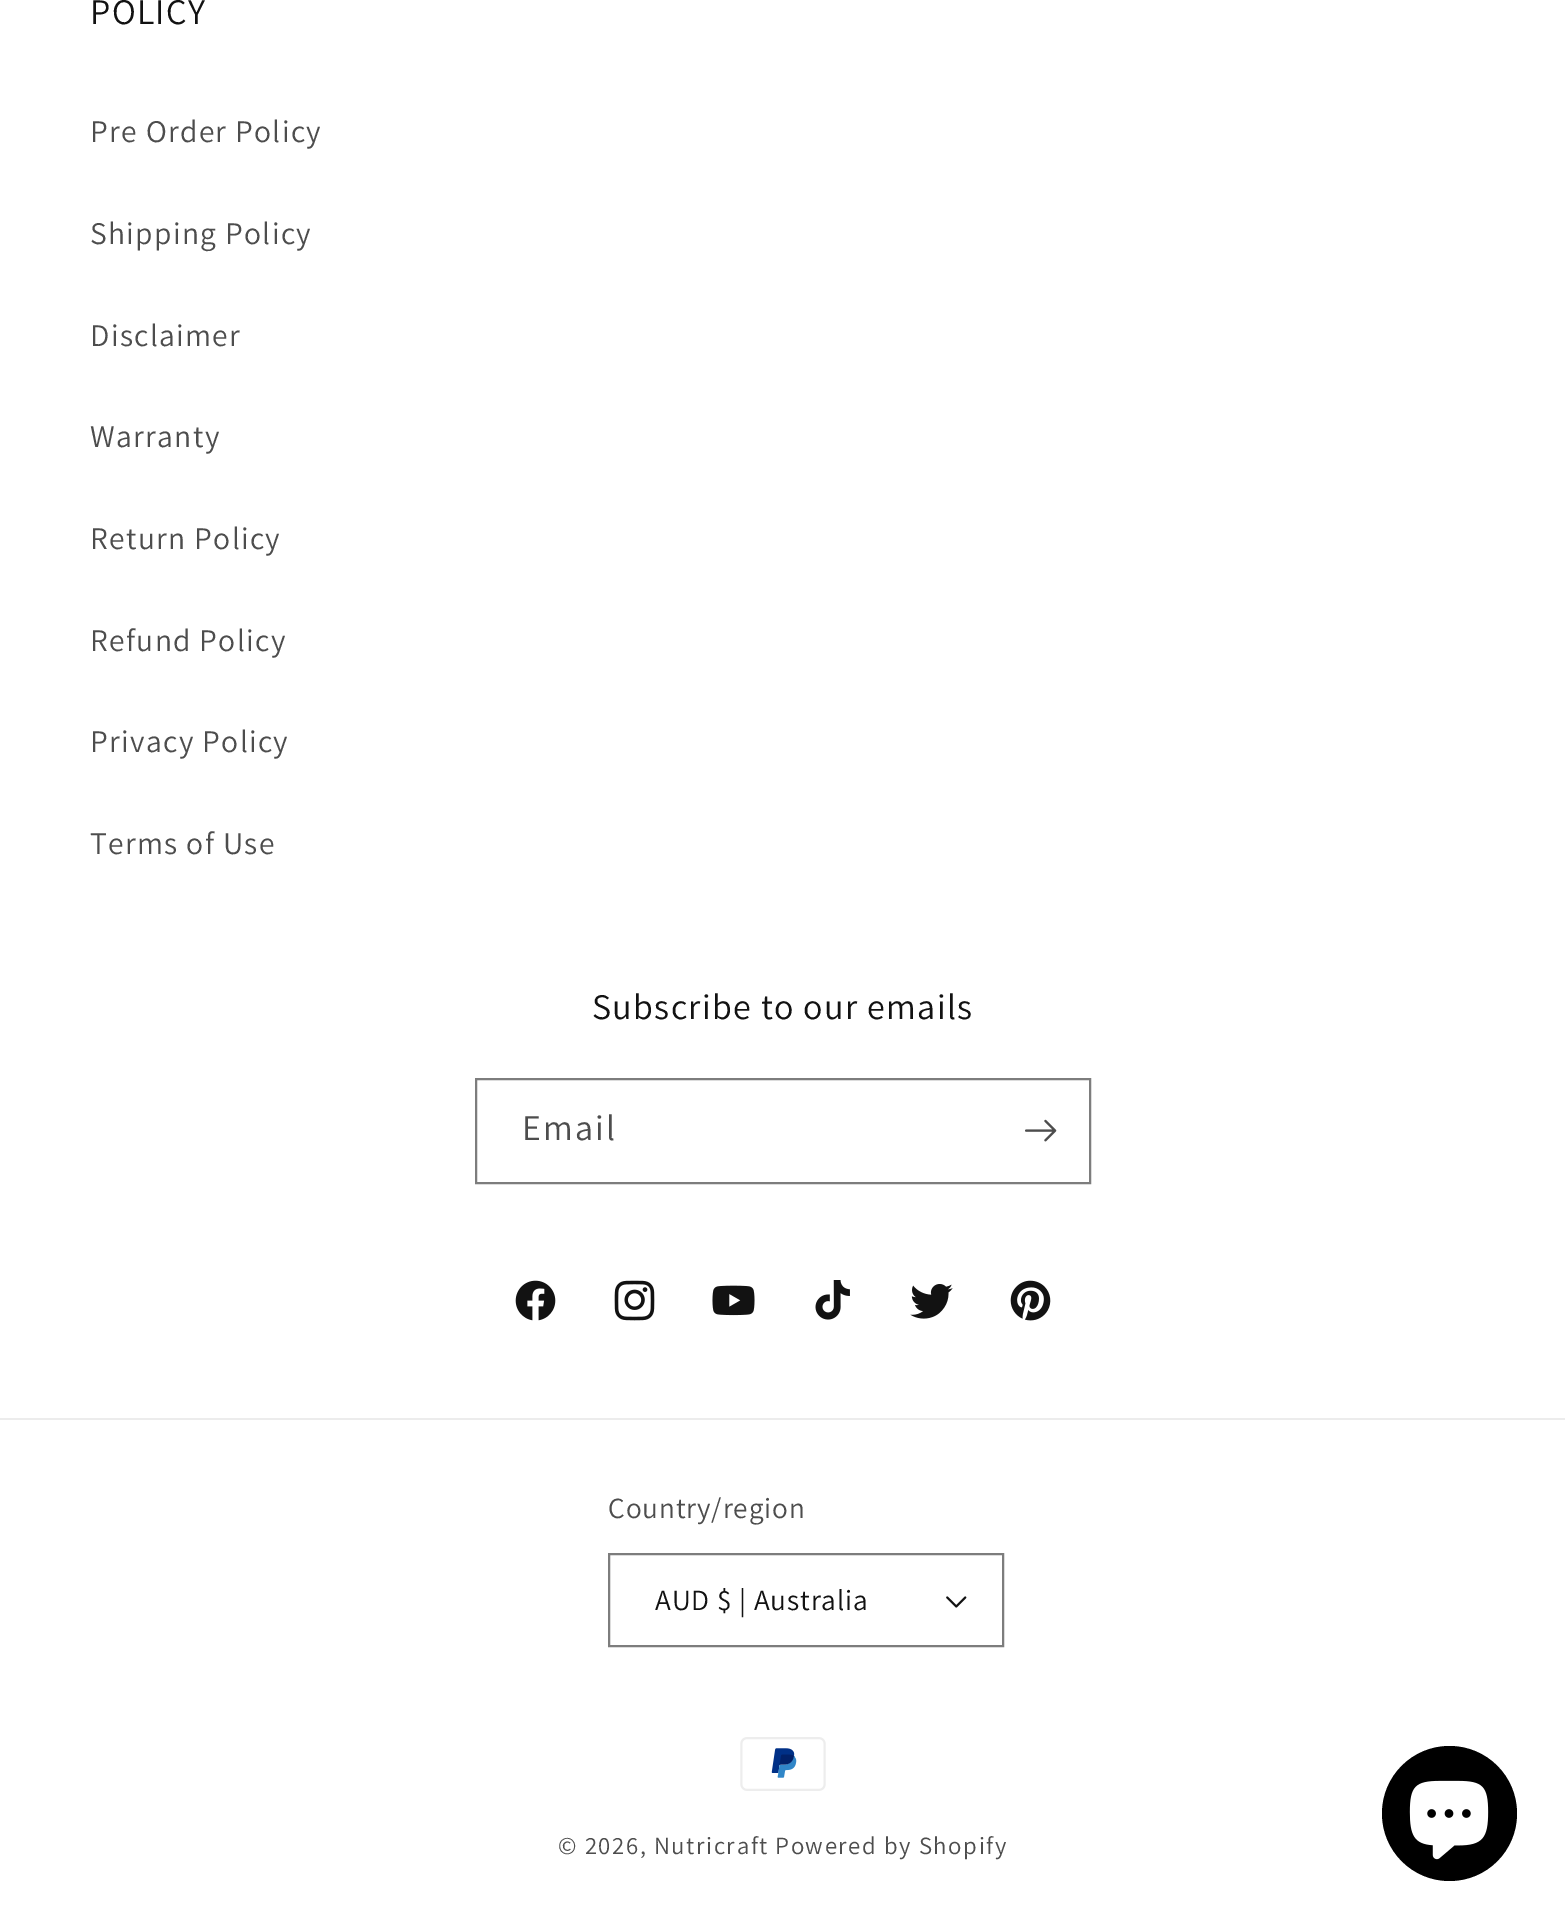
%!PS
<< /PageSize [1565 1928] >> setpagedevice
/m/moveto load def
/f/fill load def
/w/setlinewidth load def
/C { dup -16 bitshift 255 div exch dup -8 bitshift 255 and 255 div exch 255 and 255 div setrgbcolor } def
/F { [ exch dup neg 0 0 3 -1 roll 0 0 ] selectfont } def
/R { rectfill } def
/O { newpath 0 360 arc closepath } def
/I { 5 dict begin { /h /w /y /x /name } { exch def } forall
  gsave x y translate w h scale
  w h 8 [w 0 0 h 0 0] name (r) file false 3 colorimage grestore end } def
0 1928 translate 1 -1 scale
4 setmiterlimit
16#FFFFFF C
0 0 1565 1928 R
/Assistant-Regular 36 F
16#121212 C
90 24 m 1.35 0 (POLICY) ashow
/Assistant-Regular 31.5 F
16#4D4D4D C
90 142 m 1.35 0 (Pre Order Policy) ashow
90 244 m 1.35 0 (Shipping Policy) ashow
90 346 m 1.35 0 (Disclaimer) ashow
90 447 m 1.35 0 (Warranty) ashow
90 549 m 1.35 0 (Return Policy) ashow
90 651 m 1.35 0 (Refund Policy) ashow
90 752 m 1.35 0 (Privacy Policy) ashow
90 854 m 1.35 0 (Terms of Use) ashow
/Assistant-Regular 36 F
16#121212 C
592 1019 m 1.35 0 (Subscribe to our emails) ashow
16#7D7D7D C
2 w
476 1079 614 104 rectstroke
16#4D4D4D C
522 1140 m 2.25 0 (Email) ashow
(1.rgb) 1025 1119 32 23 I
(2.rgb) 515 1280 41 41 I
(3.rgb) 614 1280 41 41 I
(4.rgb) 712 1285 43 31 I
(5.rgb) 815 1280 35 40 I
(6.rgb) 910 1284 43 35 I
(7.rgb) 1010 1280 41 41 I
16#ECECEC C
0 1418 1565 2 R
/Assistant-Regular 29.25 F
16#4D4D4D C
608 1518 m .9 0 (Country/region) ashow
(8.rgb) 946 1596 21 12 I
16#7D7D7D C
609 1554 394 92 rectstroke
16#121212 C
655 1610 m .9 0 (AUD $ | Australia) ashow
(9.rgb) 740 1737 86 54 I
/Assistant-Regular 24.75 F
16#4D4D4D C
558 1854 m 1.6 0 (© 2026, Nutricraft) ashow
775 1854 m 1.6 0 (Powered by Shopify) ashow
16#000000 C
1449.5 1813.5 67.5 O f
(10.rgb) 1409 1780 80 80 I
showpage
